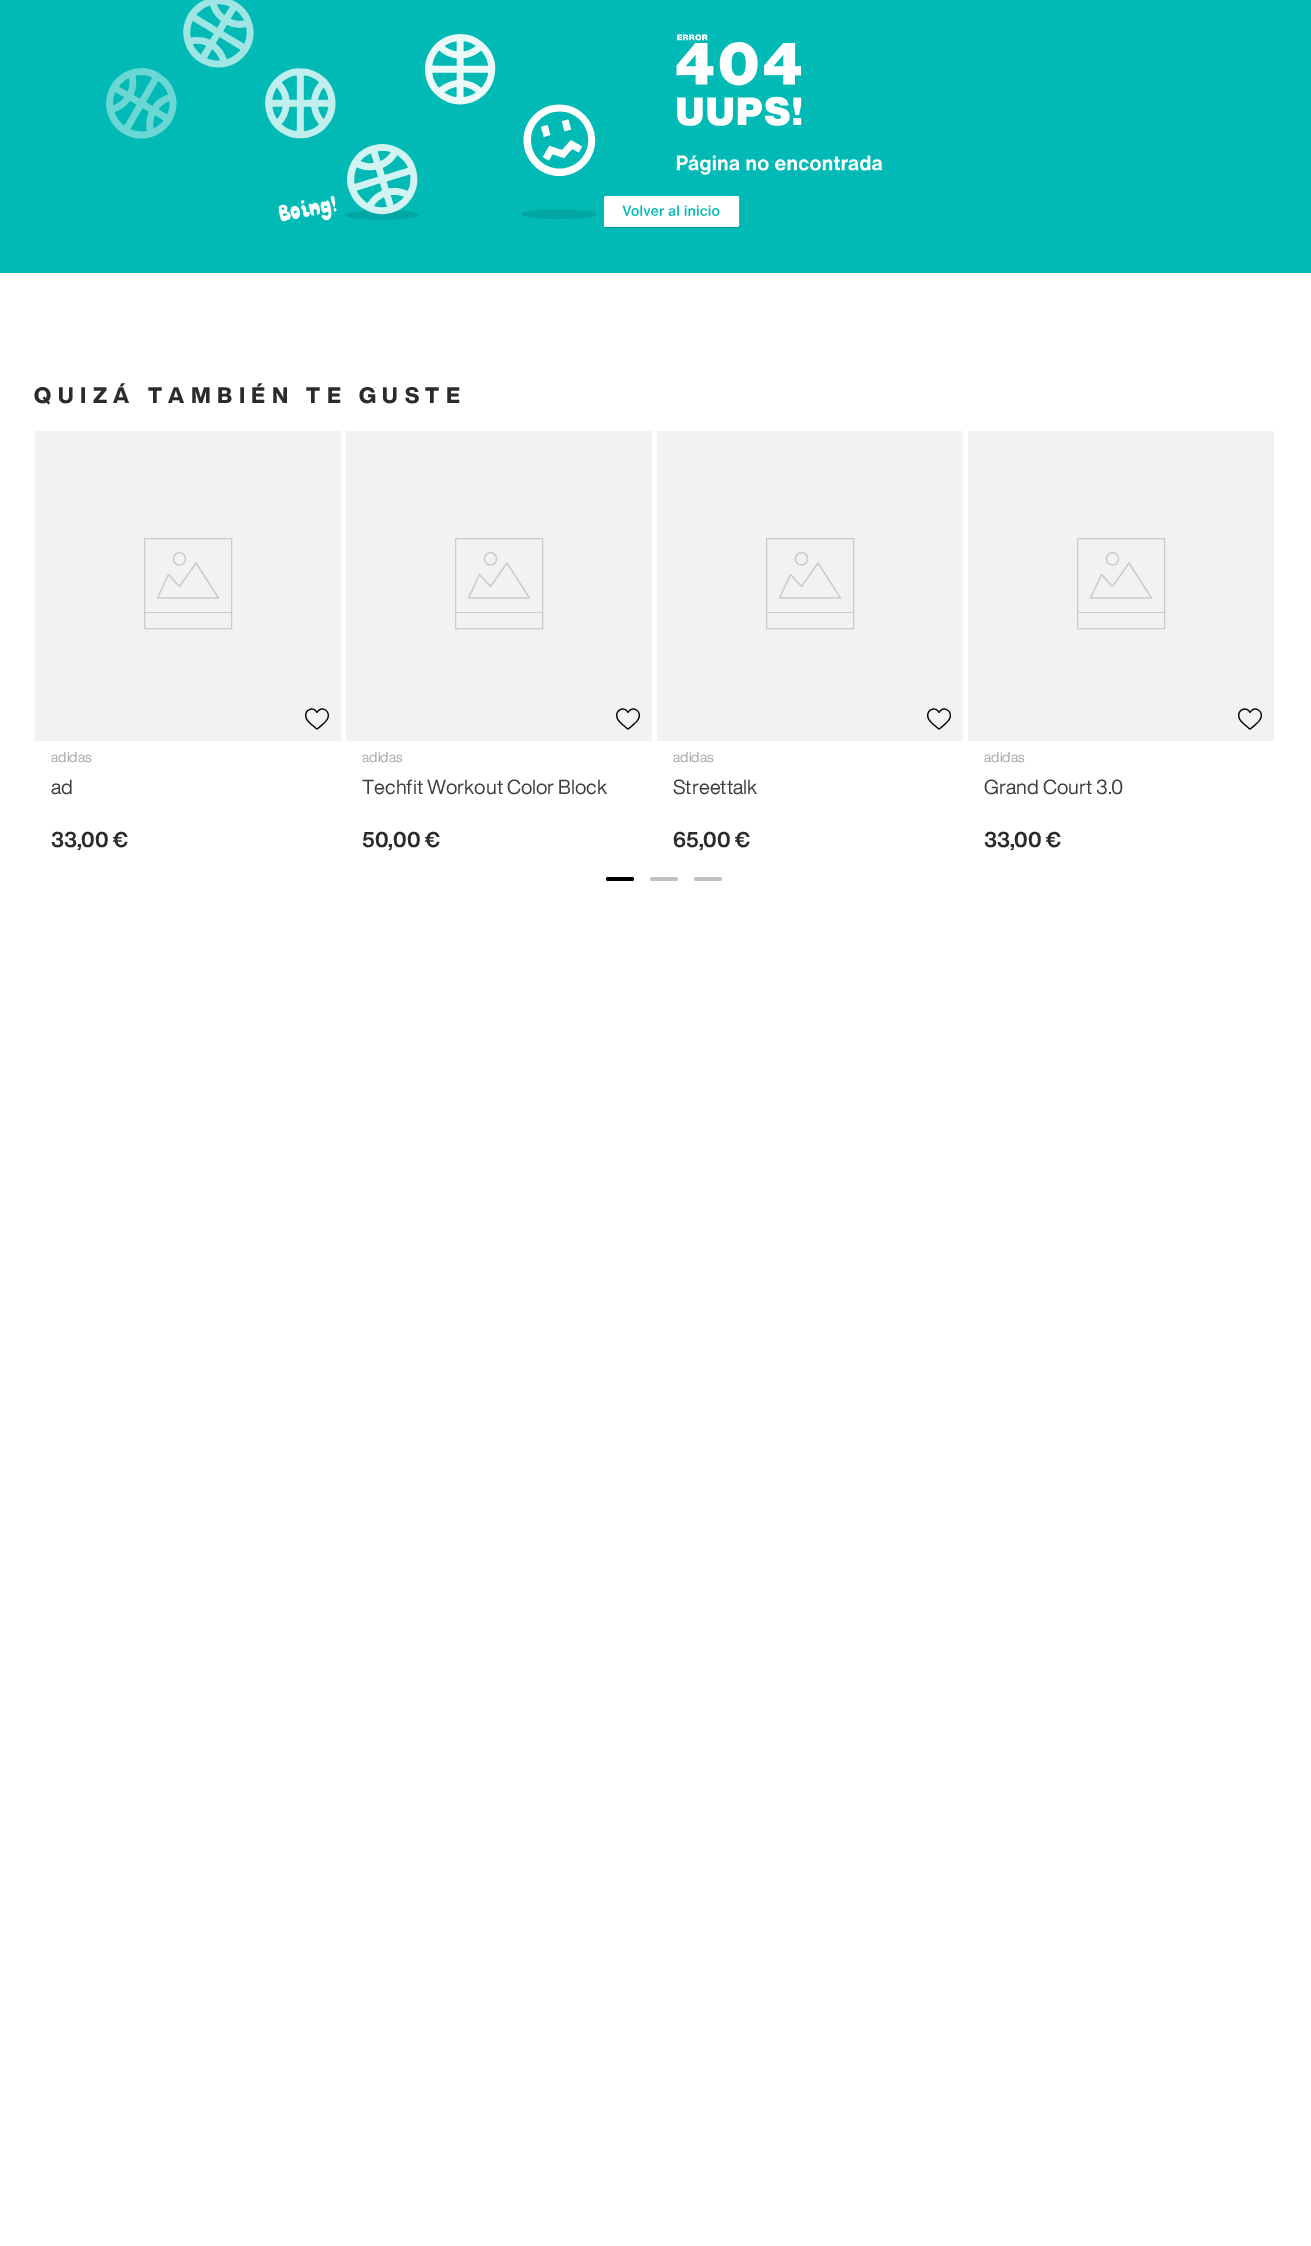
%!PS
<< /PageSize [1311 2246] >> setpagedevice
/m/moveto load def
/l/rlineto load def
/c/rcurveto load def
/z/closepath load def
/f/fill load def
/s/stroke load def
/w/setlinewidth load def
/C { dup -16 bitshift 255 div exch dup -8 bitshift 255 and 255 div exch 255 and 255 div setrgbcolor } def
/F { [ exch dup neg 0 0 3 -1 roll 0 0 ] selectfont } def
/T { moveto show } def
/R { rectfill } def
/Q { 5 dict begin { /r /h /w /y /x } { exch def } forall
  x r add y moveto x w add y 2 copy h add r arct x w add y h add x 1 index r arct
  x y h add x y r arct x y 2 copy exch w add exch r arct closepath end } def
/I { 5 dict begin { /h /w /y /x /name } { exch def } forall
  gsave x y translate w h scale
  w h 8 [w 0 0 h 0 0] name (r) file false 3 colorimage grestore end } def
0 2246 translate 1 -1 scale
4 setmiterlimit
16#FFFFFF C
0 0 1311 2246 R
(1.rgb) 0 0 1311 273 I
/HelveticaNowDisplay-ExtraBold 22 F
16#2B2B2B C
34 403 m 6.6 0 (QUIZÁ TAMBIÉN TE GUSTE) ashow
16#F2F2F2 C
35 431 306 310 R
16#CACBCC C
144.5 538.5 87 90 rectstroke
1.2 w
1 setlinecap
1 setlinejoin
157.5 598 m 11 -23.5 l 11 12 l 16.5 -23.5 l 22.5 35 l z s
0 setlinecap
0 setlinejoin
185.5 559 m 0 8 -12 8 -12 0 c 0 -8.5 12 -8.5 12 0 c z s
145 612 86 1 R
(2.rgb) 305 708 24 22 I
/HelveticaNowDisplay-Regular 14 F
16#A8A8A8 C
(adidas) 51 762 T
/HelveticaNowDisplay-Regular 20 F
16#3F3F40 C
(ad) 51 794 T
/HelveticaNowDisplay-Bold 21 F
16#2B2B2B C
(33,00 €) 51 847 T
16#F2F2F2 C
346 431 306 310 R
16#CACBCC C
1 w
455.5 538.5 87 90 rectstroke
1.2 w
1 setlinecap
1 setlinejoin
468.5 598 m 11 -23.5 l 11 12 l 16.5 -23.5 l 22.5 35 l z s
0 setlinecap
0 setlinejoin
496.5 559 m 0 8 -12 8 -12 0 c 0 -8.5 12 -8.5 12 0 c z s
456 612 86 1 R
(3.rgb) 616 708 24 22 I
/HelveticaNowDisplay-Regular 14 F
16#A8A8A8 C
(adidas) 362 762 T
/HelveticaNowDisplay-Regular 20 F
16#3F3F40 C
(Techfit Workout Color Block) 362 794 T
/HelveticaNowDisplay-Bold 21 F
16#2B2B2B C
(50,00 €) 362 847 T
16#F2F2F2 C
657 431 306 310 R
16#CACBCC C
1 w
766.5 538.5 87 90 rectstroke
1.2 w
1 setlinecap
1 setlinejoin
779.5 598 m 11 -23.5 l 11 12 l 16.5 -23.5 l 22.5 35 l z s
0 setlinecap
0 setlinejoin
807.5 559 m 0 8 -12 8 -12 0 c 0 -8.5 12 -8.5 12 0 c z s
767 612 86 1 R
(3.rgb) 927 708 24 22 I
/HelveticaNowDisplay-Regular 14 F
16#A8A8A8 C
(adidas) 673 762 T
/HelveticaNowDisplay-Regular 20 F
16#3F3F40 C
(Streettalk) 673 794 T
/HelveticaNowDisplay-Bold 21 F
16#2B2B2B C
(65,00 €) 673 847 T
16#F2F2F2 C
968 431 306 310 R
16#CACBCC C
1 w
1077.5 538.5 87 90 rectstroke
1.2 w
1 setlinecap
1 setlinejoin
1090.5 598 m 11 -23.5 l 11 12 l 16.5 -23.5 l 22.5 35 l z s
0 setlinecap
0 setlinejoin
1118.5 559 m 0 8 -12 8 -12 0 c 0 -8.5 12 -8.5 12 0 c z s
1078 612 86 1 R
(3.rgb) 1238 708 24 22 I
/HelveticaNowDisplay-Regular 14 F
16#A8A8A8 C
(adidas) 984 762 T
/HelveticaNowDisplay-Regular 20 F
16#3F3F40 C
(Grand Court 3.0) 984 794 T
/HelveticaNowDisplay-Bold 21 F
16#2B2B2B C
(33,00 €) 984 847 T
16#000000 C
606 877 28 4 2 Q f
16#C2C2C2 C
650 877 28 4 2 Q f
694 877 28 4 2 Q f
showpage
